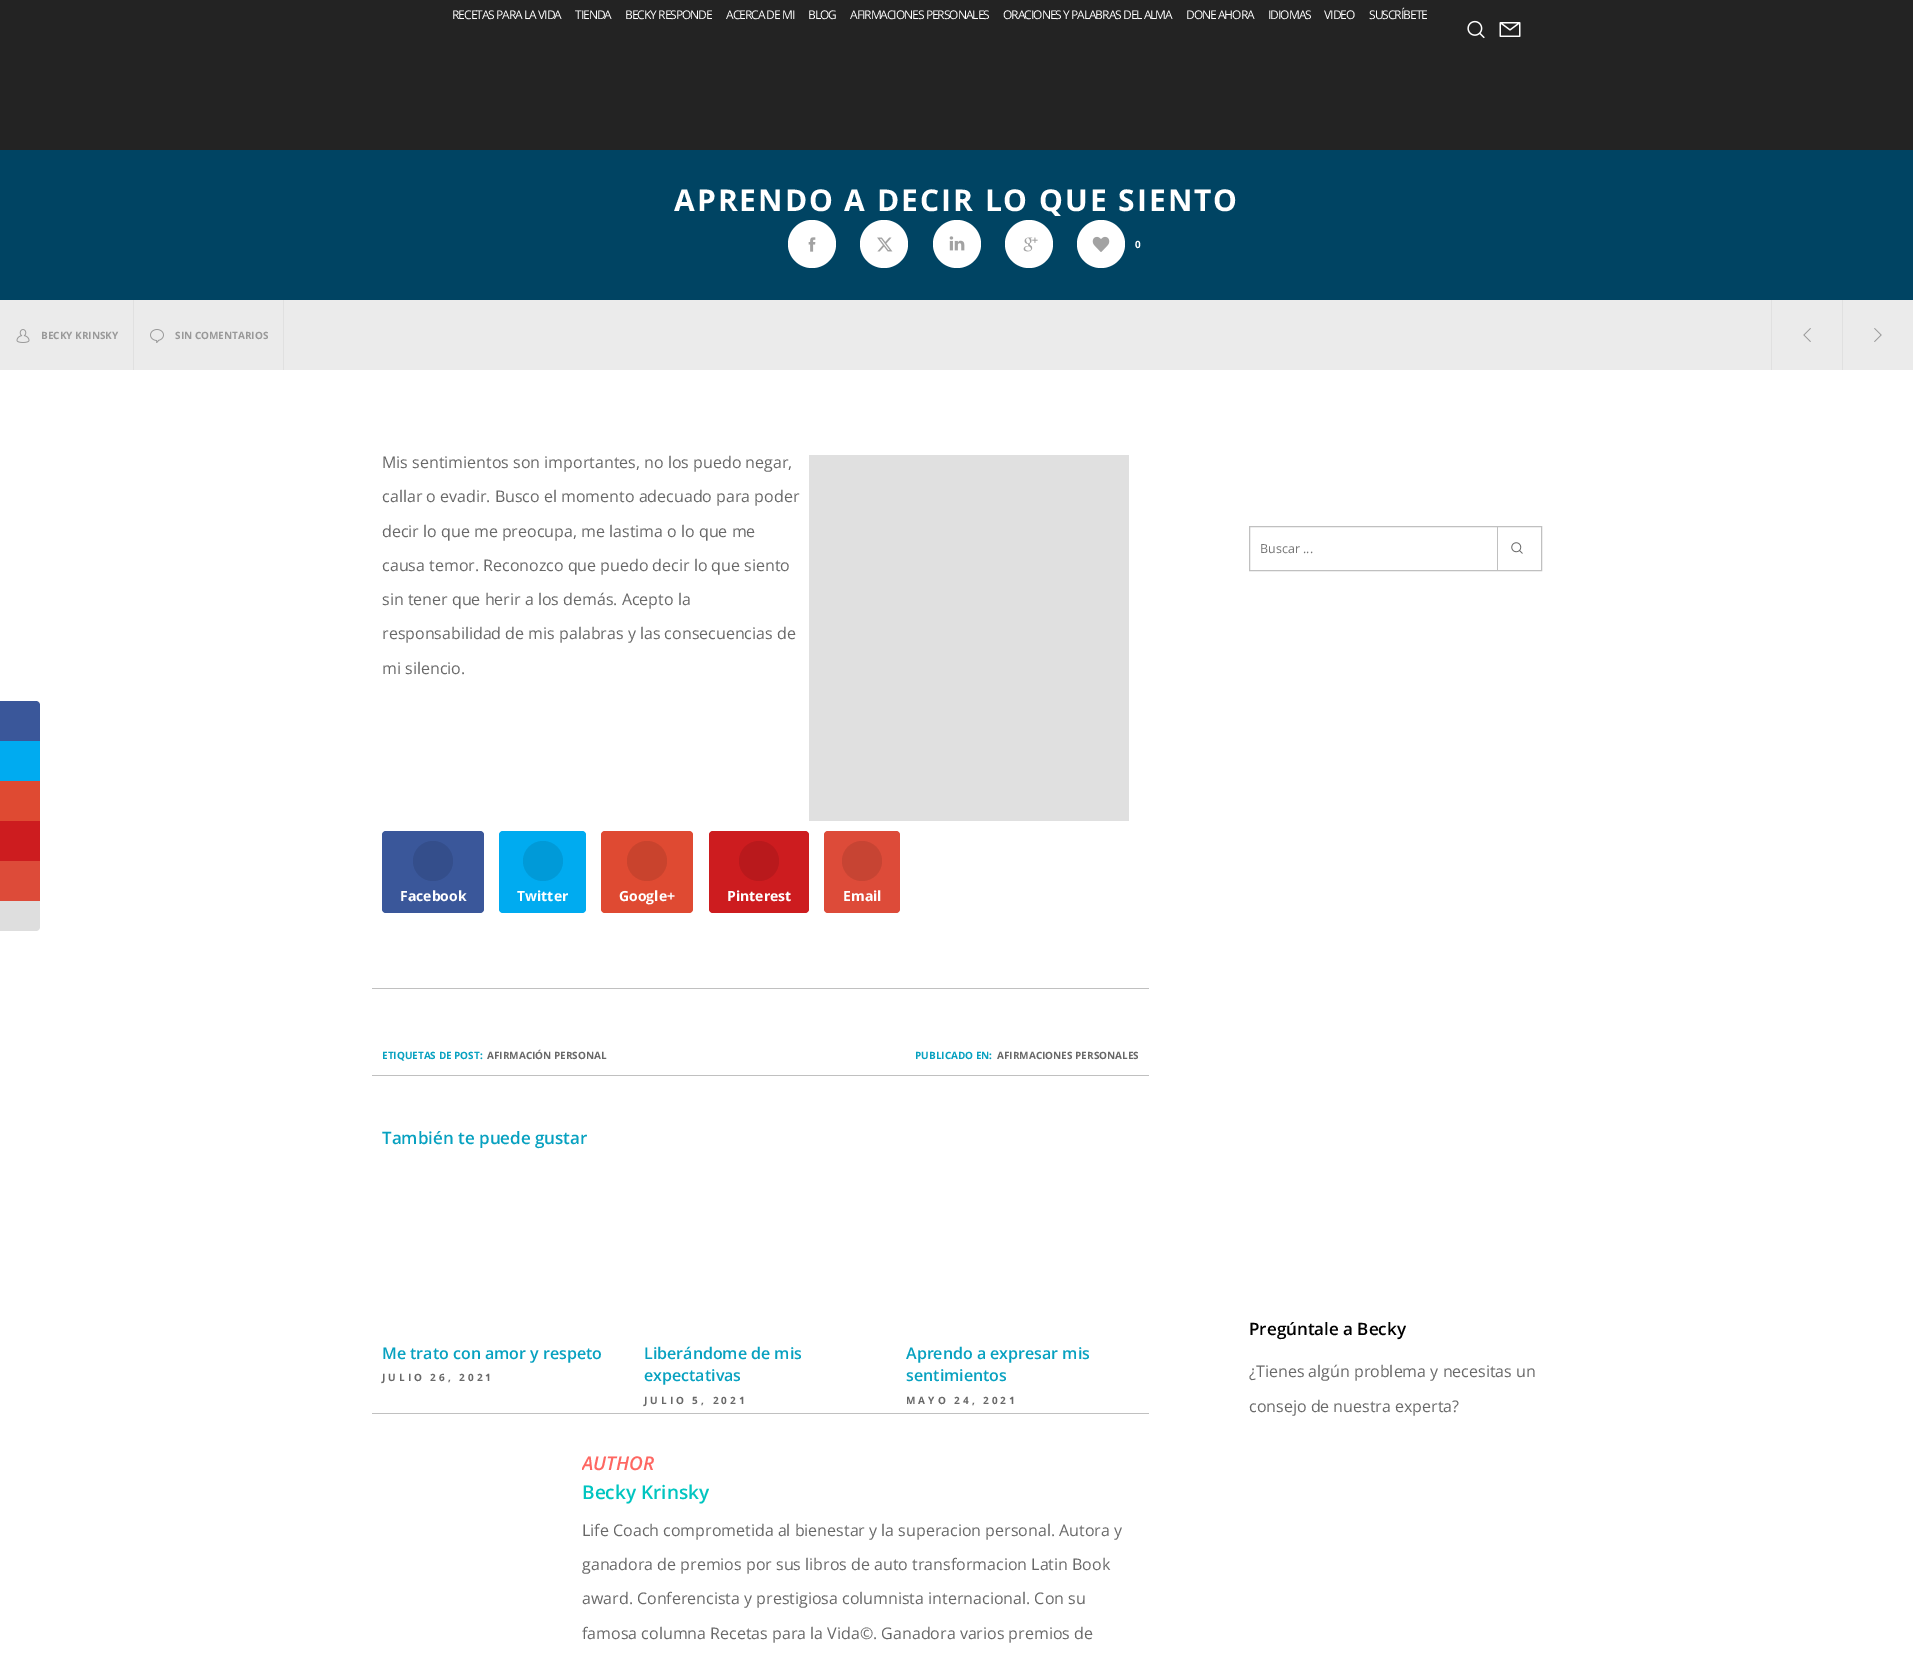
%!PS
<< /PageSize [1913 1664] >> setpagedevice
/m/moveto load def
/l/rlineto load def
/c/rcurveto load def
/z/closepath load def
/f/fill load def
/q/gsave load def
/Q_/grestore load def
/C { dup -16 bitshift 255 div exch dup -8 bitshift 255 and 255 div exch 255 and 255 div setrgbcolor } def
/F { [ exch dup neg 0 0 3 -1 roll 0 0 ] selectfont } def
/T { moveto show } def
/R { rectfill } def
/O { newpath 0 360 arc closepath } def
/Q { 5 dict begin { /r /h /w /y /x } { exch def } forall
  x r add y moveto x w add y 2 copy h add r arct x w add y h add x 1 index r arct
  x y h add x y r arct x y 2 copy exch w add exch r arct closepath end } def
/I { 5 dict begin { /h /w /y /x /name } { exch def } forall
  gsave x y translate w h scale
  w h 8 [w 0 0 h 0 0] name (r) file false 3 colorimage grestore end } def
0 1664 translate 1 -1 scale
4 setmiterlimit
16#FFFFFF C
0 0 1913 1664 R
16#3A579A C
0 701 m 36 0 l 2 0 4 2 4 4 c 0 36 l -40 0 l z f
16#00ABF0 C
0 741 40 40 R
16#DF4A32 C
0 781 40 40 R
16#CD1C1F C
0 821 40 40 R
16#DD4B39 C
0 861 40 40 R
16#DEDEDE C
0 901 m 40 0 l 0 26 l 0 2 -2 4 -4 4 c -36 0 l z f
16#232323 C
0 0 1913 150 R
/OpenSans-Regular 12 F
16#FFFFFF C
452 19 m -1 0 (RECETAS PARA LA VIDA) ashow
575 19 m -1 0 (TIENDA) ashow
625 19 m -1 0 (BECKY RESPONDE) ashow
726 19 m -1 0 (ACERCA DE MI) ashow
808 19 m -1 0 (BLOG) ashow
850 19 m -1 0 (AFIRMACIONES PERSONALES) ashow
1003 19 m -1 0 (ORACIONES Y PALABRAS DEL ALMA) ashow
1186 19 m -1 0 (DONE AHORA) ashow
1268 19 m -1 0 (IDIOMAS) ashow
1324 19 m -1 0 (VIDEO) ashow
1369 19 m -1 0 (SUSCRÍBETE) ashow
(1.rgb) 1467 20 18 19 I
(2.rgb) 1499 22 22 15 I
16#004463 C
0 150 1913 150 R
/OpenSans-Bold 30 F
16#FFFFFF C
674 211 m 2 0 (APRENDO A DECIR LO QUE SIENTO) ashow
812 244 24 O f
(3.rgb) 808 237 8 15 I
884 244 24 O f
(4.rgb) 877 237 16 15 I
957 244 24 O f
(5.rgb) 949 236 16 15 I
1029 244 24 O f
(6.rgb) 1023 237 15 15 I
1101 244 24 O f
(7.rgb) 1092 236 18 16 I
/OpenSans-Bold 10 F
(0) 1135 248 T
16#EBEBEB C
0 300 1913 70 R
16#E0E0E0 C
133 300 1 70 R
(8.rgb) 16 329 14 14 I
16#999999 C
(BECKY KRINSKY) 41 339 T
16#E0E0E0 C
283 300 1 70 R
(9.rgb) 150 329 14 14 I
16#999999 C
(SIN COMENTARIOS) 175 339 T
16#E0E0E0 C
1771 300 1 70 R
(10.rgb) 1803 328 8 14 I
1842 300 1 70 R
(11.rgb) 1874 328 8 14 I
16#C0C0C0 C
372 988 777 1 R
/OpenSans-Regular 16 F
16#686868 C
(Mis sentimientos son importantes, no los puedo negar,) 382 468 T
(callar o evadir. Busco el momento adecuado para poder) 382 502 T
(decir lo que me preocupa, me lastima o lo que me) 382 537 T
(causa temor. Reconozco que puedo decir lo que siento) 382 571 T
(sin tener que herir a los demás. Acepto la) 382 605 T
(responsabilidad de mis palabras y las consecuencias de) 382 639 T
(mi silencio.) 382 674 T
16#3A579A C
382 831 102 82 4 Q f
16#344E8B C
433 861 20 O f
/OpenSans-Bold 14 F
16#FFFFFF C
(Facebook) 400 901 T
16#00ABF0 C
499 831 87 82 4 Q f
16#009AD8 C
543 861 20 O f
16#FFFFFF C
(Twitter) 517 901 T
16#DF4A32 C
601 831 92 82 4 Q f
16#C9432D C
647 861 20 O f
16#FFFFFF C
(Google+) 619 901 T
16#CD1C1F C
709 831 100 82 4 Q f
16#B9191C C
759 861 20 O f
16#FFFFFF C
(Pinterest) 727 901 T
16#DD4B39 C
824 831 76 82 4 Q f
16#C74433 C
862 861 20 O f
16#FFFFFF C
(Email) 843 901 T
16#E0E0E0 C
809 455 320 366 R
16#C0C0C0 C
372 1075 777 1 R
/OpenSans-Bold 10 F
16#07A1C0 C
(ETIQUETAS DE POST:) 382 1059 T
16#686868 C
(AFIRMACIÓN PERSONAL) 487 1059 T
16#07A1C0 C
(PUBLICADO EN:) 915 1059 T
16#686868 C
(AFIRMACIONES PERSONALES) 997 1059 T
16#C0C0C0 C
372 1413 777 1 R
/OpenSans-SemiBold 17 F
16#07A1C0 C
(También te puede gustar) 382 1144 T
/OpenSans-SemiBold 16 F
(Me trato con amor y respeto) 382 1359 T
/OpenSans-Bold 10 F
16#686868 C
382 1381 m 3 0 (JULIO 26, 2021) ashow
/OpenSans-SemiBold 16 F
16#07A1C0 C
(Liberándome de mis) 644 1359 T
(expectativas) 644 1381 T
/OpenSans-Bold 10 F
16#686868 C
644 1404 m 3 0 (JULIO 5, 2021) ashow
/OpenSans-SemiBold 16 F
16#07A1C0 C
(Aprendo a expresar mis) 906 1359 T
(sentimientos) 906 1381 T
/OpenSans-Bold 10 F
16#686868 C
906 1404 m 3 0 (MAYO 24, 2021) ashow
q
582 1449 557 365 rectclip
/OpenSans-SemiBoldItalic 19 F
16#FE6762 C
(AUTHOR) 582 1470 T
Q_
/OpenSans-SemiBold 19 F
16#00C5C0 C
(Becky Krinsky) 582 1499 T
/OpenSans-Regular 16 F
16#686868 C
(Life Coach comprometida al bienestar y la superacion personal. Autora y) 582 1536 T
(ganadora de premios por sus libros de auto transformacion Latin Book) 582 1570 T
(award. Conferencista y prestigiosa columnista internacional. Con su) 582 1604 T
(famosa columna Recetas para la Vida©. Ganadora varios premios de) 582 1639 T
16#C0C0C0 C
1249.5 526.5 292 44 rectstroke
/OpenSans-Regular 12.5 F
16#757575 C
(Buscar ...) 1260 553 T
16#C0C0C0 C
1497 526 1 45 R
(12.rgb) 1511 542 12 12 I
/OpenSans-SemiBold 17 F
16#000000 C
(Pregúntale a Becky) 1249 1335 T
/OpenSans-Regular 16 F
16#686868 C
(¿Tienes algún problema y necesitas un) 1249 1377 T
(consejo de nuestra experta?) 1249 1412 T
showpage
